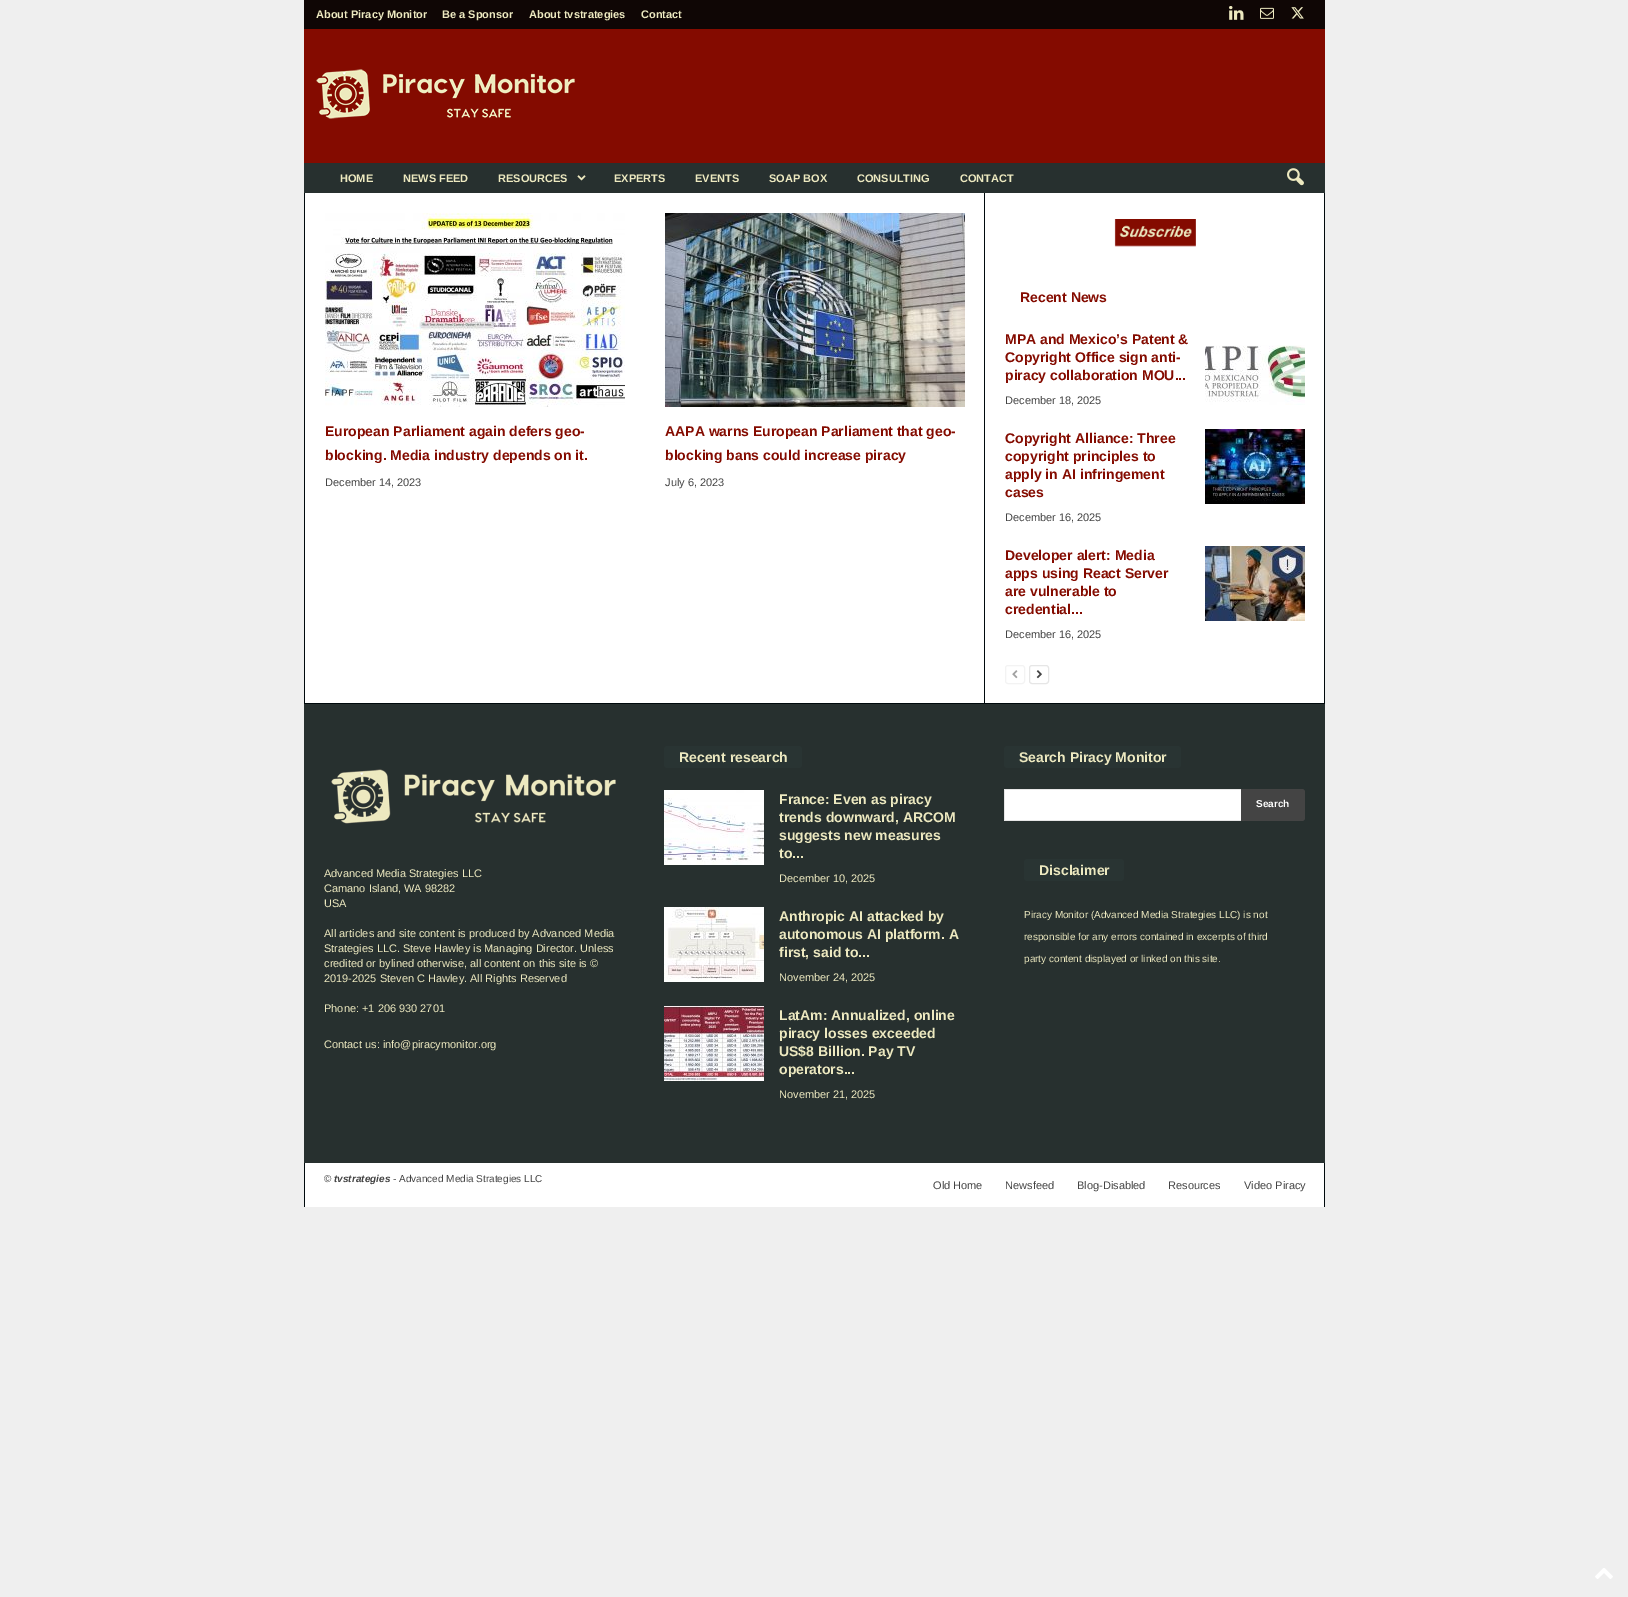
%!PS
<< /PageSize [1628 1597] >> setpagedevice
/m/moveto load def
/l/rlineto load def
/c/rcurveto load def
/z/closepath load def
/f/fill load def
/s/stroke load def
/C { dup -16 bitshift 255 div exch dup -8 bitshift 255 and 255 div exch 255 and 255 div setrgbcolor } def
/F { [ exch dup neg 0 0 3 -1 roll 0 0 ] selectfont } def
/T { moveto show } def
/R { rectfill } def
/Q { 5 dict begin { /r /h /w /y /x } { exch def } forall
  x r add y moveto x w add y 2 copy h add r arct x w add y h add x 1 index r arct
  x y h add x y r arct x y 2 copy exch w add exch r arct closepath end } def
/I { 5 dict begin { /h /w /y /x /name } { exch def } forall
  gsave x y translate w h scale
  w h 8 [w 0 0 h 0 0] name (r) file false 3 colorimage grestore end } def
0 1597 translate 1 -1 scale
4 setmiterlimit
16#EFEFEF C
0 0 1628 1597 R
16#0F0605 C
304 0 1021 29 R
/LiberationSans-Bold 11 F
16#EDE9C0 C
(About Piracy Monitor) 316 18 T
(Be a Sponsor) 442 18 T
(About tvstrategies) 529 18 T
(Contact) 641 18 T
(1.rgb) 1229 6 15 14 I
(2.rgb) 1260 7 14 12 I
(3.rgb) 1291 7 13 12 I
16#840B00 C
304 29 1021 134 R
(4.rgb) 316 69 259 50 I
16#27302F C
304 163 1021 30 R
16#EDE9C0 C
(HOME) 340 182 T
(NEWS FEED) 403 182 T
(RESOURCES) 498 182 T
(5.rgb) 577 175 9 6 I
(EXPERTS) 614 182 T
(EVENTS) 695 182 T
(SOAP BOX) 769 182 T
(CONSULTING) 857 182 T
(CONTACT) 960 182 T
(6.rgb) 1287 168 17 18 I
16#FFFFFF C
305 193 1019 510 R
16#00090C C
304 703 1021 1 R
304 193 1 510 R
(7.rgb) 325 213 300 194 I
/LiberationSans-Bold 14 F
16#840B00 C
(European Parliament again defers geo-) 325 436 T
(blocking. Media industry depends on it.) 325 460 T
/LiberationSans-Regular 11 F
16#444444 C
(December 14, 2023) 325 486 T
(8.rgb) 665 213 300 194 I
/LiberationSans-Bold 14 F
16#840B00 C
(AAPA warns European Parliament that geo-) 665 436 T
(blocking bans could increase piracy) 665 460 T
/LiberationSans-Regular 11 F
16#444444 C
(July 6, 2023) 665 486 T
16#00090C C
984 193 1 510 R
(9.rgb) 1114 219 82 28 I
/LiberationSans-Bold 14 F
16#840B00 C
(Recent News) 1020 302 T
(MPA and Mexico’s Patent &) 1005 344 T
(Copyright Office sign anti-) 1005 362 T
(piracy collaboration MOU...) 1005 380 T
/LiberationSans-Regular 11 F
16#444444 C
(December 18, 2025) 1005 404 T
(10.rgb) 1205 345 100 60 I
/LiberationSans-Bold 14 F
16#840B00 C
(Copyright Alliance: Three) 1005 443 T
(copyright principles to) 1005 461 T
(apply in AI infringement) 1005 479 T
(cases) 1005 497 T
/LiberationSans-Regular 11 F
16#444444 C
(December 16, 2025) 1005 521 T
(11.rgb) 1205 429 100 75 I
/LiberationSans-Bold 14 F
16#840B00 C
(Developer alert: Media) 1005 560 T
(apps using React Server) 1005 578 T
(are vulnerable to) 1005 596 T
(credential...) 1005 614 T
/LiberationSans-Regular 11 F
16#444444 C
(December 16, 2025) 1005 638 T
(12.rgb) 1205 546 100 75 I
16#F3F3F3 C
1005.5 665.5 19 18 2.5 Q s
(13.rgb) 1012 670 6 9 I
16#E6E6E6 C
1029.5 665.5 19 18 2.5 Q s
(14.rgb) 1036 670 6 9 I
16#00090C C
1324 193 1 510 R
16#27302F C
304 704 1021 459 R
(15.rgb) 331 769 285 55 I
16#EDE9C0 C
(Advanced Media Strategies LLC) 324 877 T
(Camano Island, WA 98282) 324 892 T
(USA) 324 907 T
(All articles and site content is produced by Advanced Media) 324 937 T
(Strategies LLC. Steve Hawley is Managing Director. Unless) 324 952 T
(credited or bylined otherwise, all content on this site is ©) 324 967 T
(2019-2025 Steven C Hawley. All Rights Reserved) 324 982 T
(Phone: +1 206 930 2701) 324 1012 T
(Contact us: info@piracymonitor.org) 324 1048 T
16#293433 C
664 746 138 22 3 Q f
/LiberationSans-Bold 14 F
16#EDE9C0 C
(Recent research) 679 762 T
(16.rgb) 664 790 100 75 I
(France: Even as piracy) 779 804 T
(trends downward, ARCOM) 779 822 T
(suggests new measures) 779 840 T
(to...) 779 858 T
/LiberationSans-Regular 11 F
(December 10, 2025) 779 882 T
(17.rgb) 664 907 100 75 I
/LiberationSans-Bold 14 F
(Anthropic AI attacked by) 779 921 T
(autonomous AI platform. A) 779 939 T
(first, said to...) 779 957 T
/LiberationSans-Regular 11 F
(November 24, 2025) 779 981 T
(18.rgb) 664 1006 100 75 I
/LiberationSans-Bold 14 F
(LatAm: Annualized, online) 779 1020 T
(piracy losses exceeded) 779 1038 T
(US$8 Billion. Pay TV) 779 1056 T
(operators...) 779 1074 T
/LiberationSans-Regular 11 F
(November 21, 2025) 779 1098 T
16#293433 C
1004 746 177 22 3 Q f
/LiberationSans-Bold 14 F
16#EDE9C0 C
(Search Piracy Monitor) 1019 762 T
16#FFFFFF C
1005 790 236 30 R
16#E6E6E6 C
1004 789 237 1 R
1004 820 237 1 R
1004 789 1 32 R
16#444444 C
1241 789 m 61 0 l 1.5 0 3 1.5 3 3 c 0 26 l 0 1.5 -1.5 3 -3 3 c -61 0 l z f
/LiberationSans-Bold 10 F
16#FFFFFF C
(Search) 1256 807 T
16#293433 C
1024 859 100 22 3 Q f
/LiberationSans-Bold 14 F
16#EDE9C0 C
(Disclaimer) 1039 875 T
/LiberationSans-Regular 10 F
(Piracy Monitor \(Advanced Media Strategies LLC\) is not) 1024 918 T
(responsible for any errors contained in excerpts of third) 1024 940 T
(party content displayed or linked on this site.) 1024 962 T
16#FFFFFF C
305 1163 1019 44 R
16#00090C C
304 1163 1 44 R
16#444444 C
(©) 324 1182 T
/LiberationSans-BoldItalic 10 F
(tvstrategies) 334 1182 T
/LiberationSans-Regular 10 F
(- Advanced Media Strategies LLC) 393 1182 T
/LiberationSans-Regular 11 F
(Old Home) 933 1189 T
(Newsfeed) 1005 1189 T
(Blog-Disabled) 1077 1189 T
(Resources) 1168 1189 T
(Video Piracy) 1244 1189 T
16#00090C C
1324 1163 1 44 R
(19.rgb) 1595 1568 18 11 I
showpage
